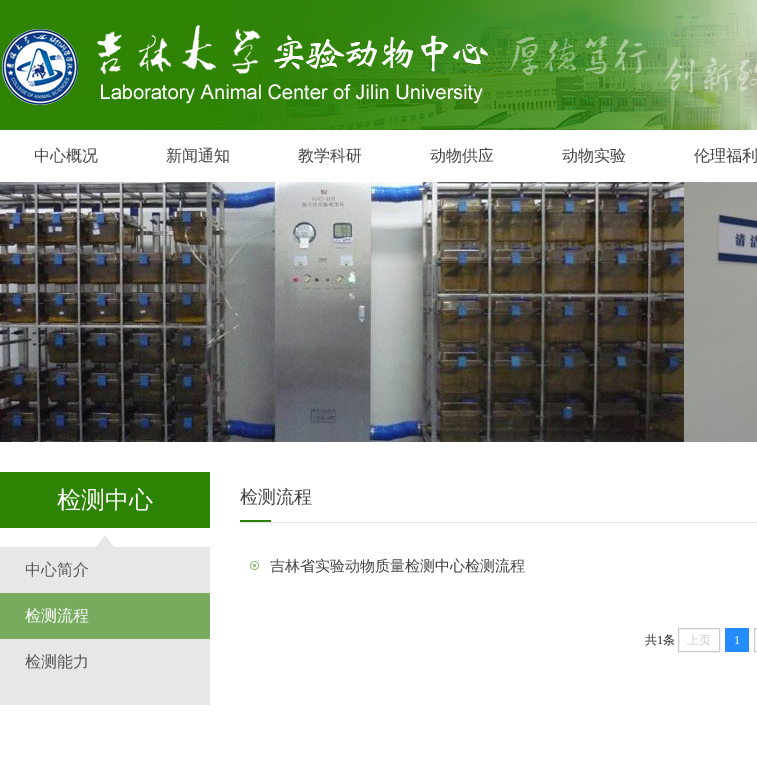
%!PS
<< /PageSize [757 773] >> setpagedevice
/C { dup -16 bitshift 255 div exch dup -8 bitshift 255 and 255 div exch 255 and 255 div setrgbcolor } def
/F { [ exch dup neg 0 0 3 -1 roll 0 0 ] selectfont } def
/T { moveto show } def
/R { rectfill } def
/I { 5 dict begin { /h /w /y /x /name } { exch def } forall
  gsave x y translate w h scale
  w h 8 [w 0 0 h 0 0] name (r) file false 3 colorimage grestore end } def
0 773 translate 1 -1 scale
4 setmiterlimit
16#FFFFFF C
0 0 757 773 R
(1.rgb) 0 0 757 130 I
(2.rgb) 2 25 486 80 I
(3.rgb) 509 36 248 57 I
/WenQuanYiZenHei-Medium 16 F
16#444444 C
(中心概况) 34 161 T
(新闻通知) 166 161 T
(教学科研) 298 161 T
(动物供应) 430 161 T
(动物实验) 562 161 T
(伦理福利) 694 161 T
(4.rgb) 0 182 757 260 I
16#2D8303 C
0 472 210 56 R
/WenQuanYiZenHei-Medium 24 F
16#FFFFFF C
(检测中心) 57 508 T
(5.rgb) 96 535 18 12 I
16#E7E7E7 C
0 547 210 158 R
/WenQuanYiZenHei-Medium 16 F
16#585858 C
(中心简介) 25 575 T
16#77AB5E C
0 593 210 46 R
16#FFFFFF C
(检测流程) 25 621 T
16#585858 C
(检测能力) 25 667 T
16#2D8304 C
240 520 31 2 R
16#E3E3E3 C
240 522 517 1 R
/WenQuanYiZenHei-Medium 18 F
16#444444 C
(检测流程) 240 503 T
(6.rgb) 250 561 9 9 I
/WenQuanYiZenHei-Medium 15 F
(吉林省实验动物质量检测中心检测流程) 270 571 T
/WenQuanYiZenHei-Medium 12 F
16#222222 C
(共) 645 644 T
/LiberationSerif-Regular 12 F
(1) 657 644 T
/WenQuanYiZenHei-Medium 12 F
(条) 663 644 T
16#CCCCCC C
678.5 628.5 41 23 rectstroke
(上页) 687 644 T
16#258CFF C
725 628 24 24 R
/LiberationSerif-Regular 12 F
16#FFFFFF C
(1) 734 644 T
16#CCCCCC C
754.5 628.5 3 23 rectstroke
showpage
